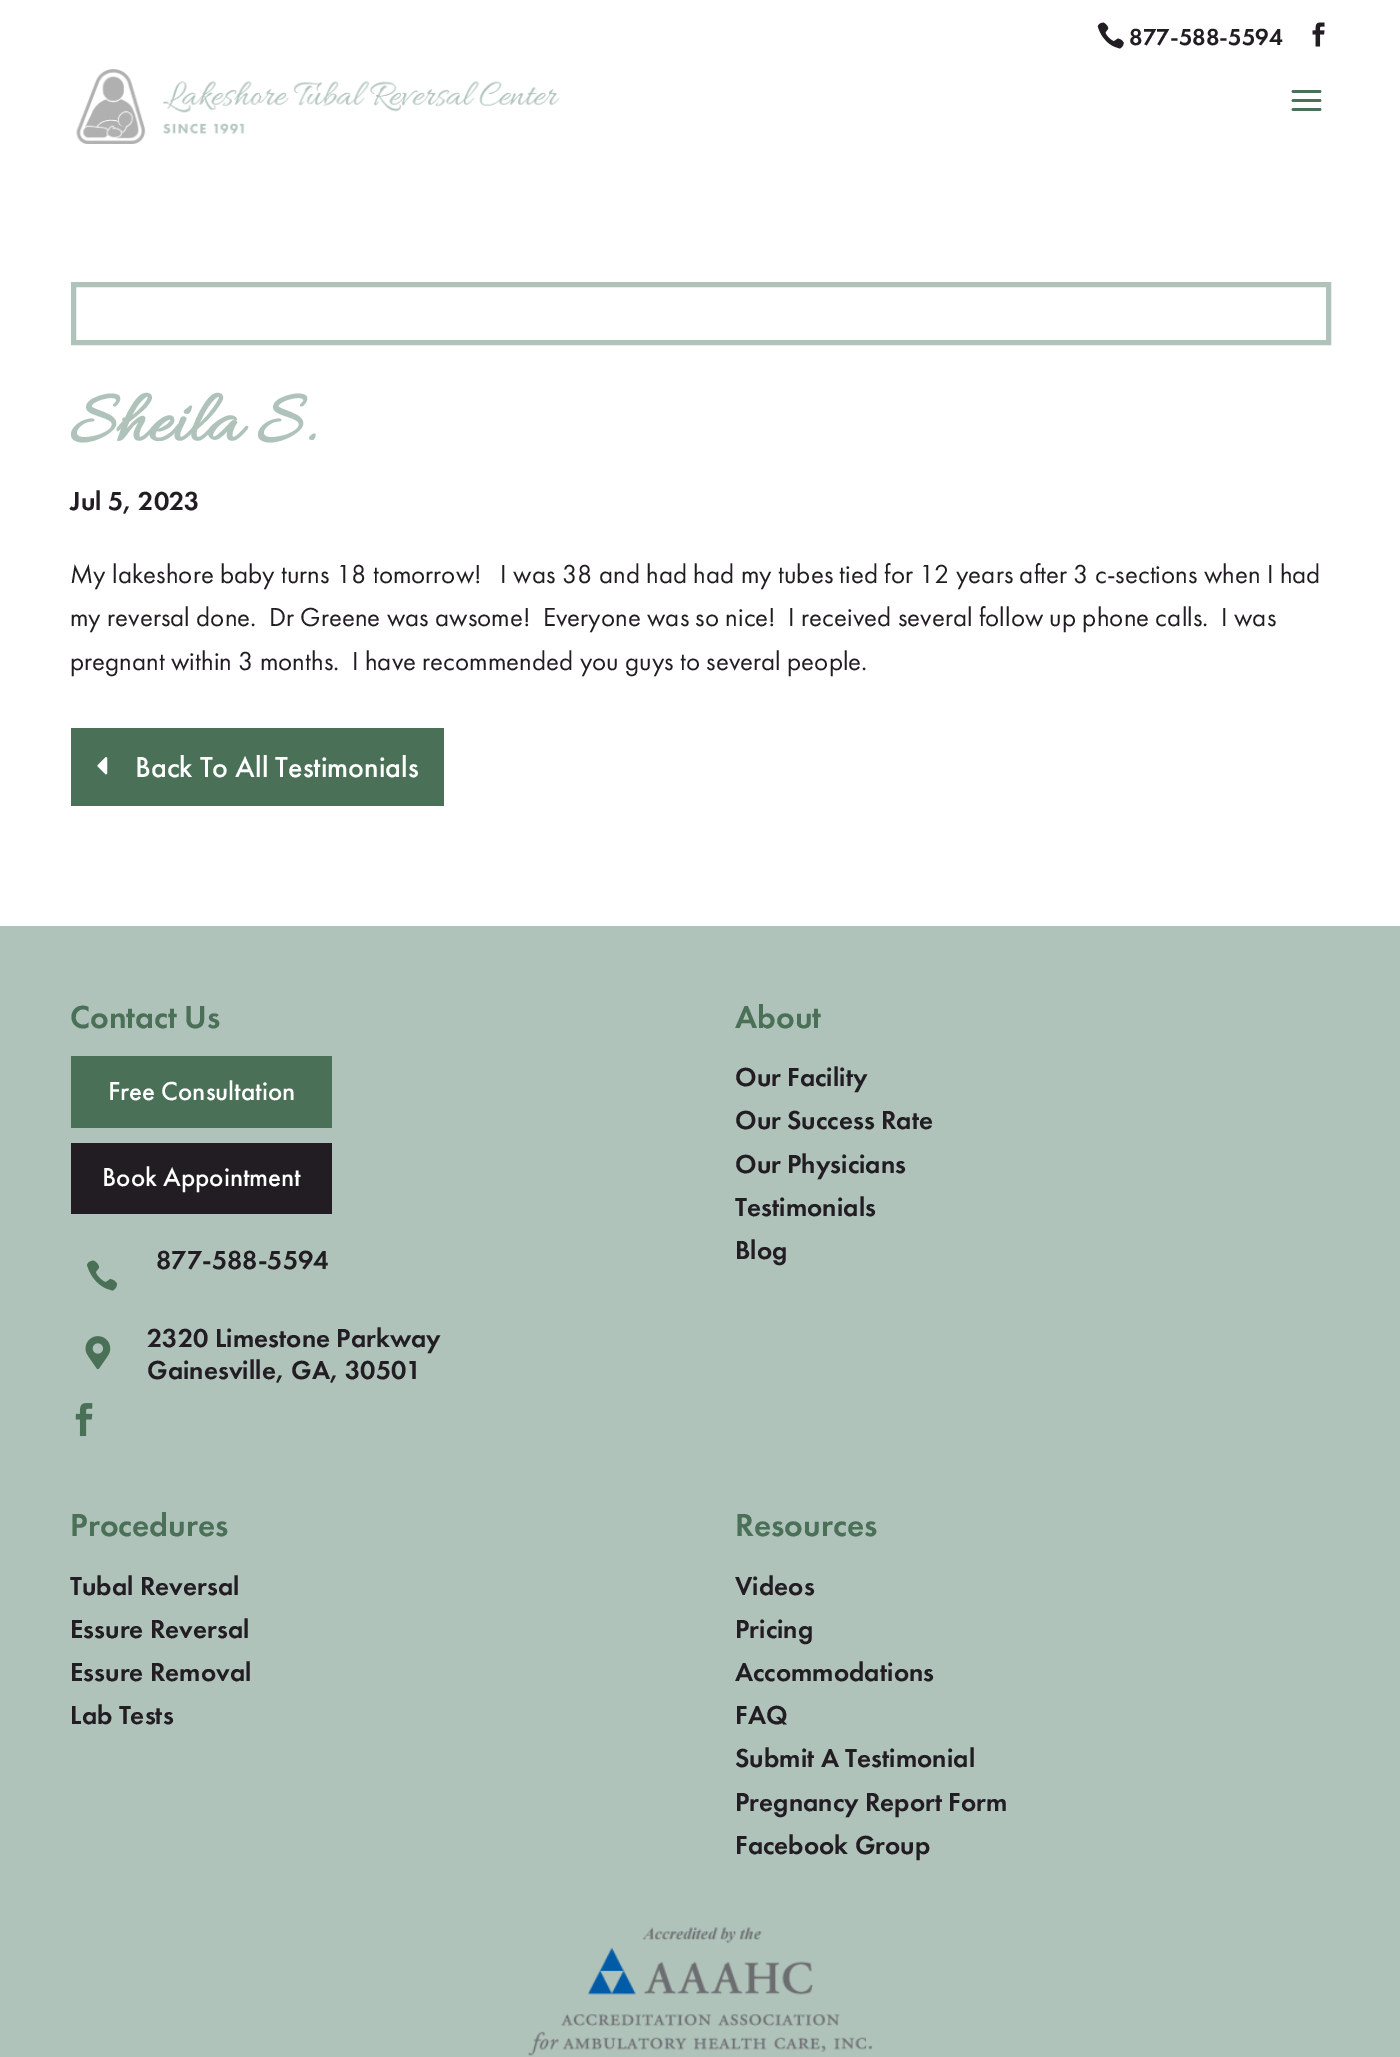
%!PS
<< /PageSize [1400 2057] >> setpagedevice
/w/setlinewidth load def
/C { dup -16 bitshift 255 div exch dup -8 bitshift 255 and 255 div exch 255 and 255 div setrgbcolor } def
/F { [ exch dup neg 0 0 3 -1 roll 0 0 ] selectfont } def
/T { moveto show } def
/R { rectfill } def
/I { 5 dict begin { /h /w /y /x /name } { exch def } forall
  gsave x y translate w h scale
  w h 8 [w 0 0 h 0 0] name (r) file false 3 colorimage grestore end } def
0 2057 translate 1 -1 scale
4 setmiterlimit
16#FFFFFF C
0 0 1400 2057 R
(1.rgb) 1097 22 27 27 I
/FuturaPT-Medium 24 F
16#221D23 C
(877-588-5594) 1129 45 T
(2.rgb) 1312 22 13 25 I
(3.rgb) 76 69 484 75 I
(4.rgb) 1291 90 31 21 I
16#B0C3BB C
5 w
73.5 284.5 1255 58 rectstroke
/Allura-Bold 75 F
(Sheila S.) 70 440 T
/FuturaPT-Medium 27 F
16#221D23 C
(Jul 5, 2023) 70 510 T
/FuturaPT-Regular 27 F
(My lakeshore baby turns 18 tomorrow!   I was 38 and had had my tubes tied for 12 years after 3 c-sections when I had) 70 583 T
(my reversal done.  Dr Greene was awsome!  Everyone was so nice!  I received several follow up phone calls.  I was) 70 626 T
(pregnant within 3 months.  I have recommended you guys to several people.) 70 670 T
16#4A7057 C
71 728 373 78 R
(5.rgb) 97 757 11 18 I
/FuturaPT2-Medium 30 F
16#FFFFFF C
(Back To All Testimonials) 135 777 T
16#B0C3BB C
0 926 1400 1131 R
/FuturaPT-Medium 33 F
16#4A7057 C
(Contact Us) 70 1028 T
71 1056 261 72 R
/FuturaPT2-Medium 27 F
16#FFFFFF C
(Free Consultation) 108 1100 T
16#221D23 C
71 1143 261 71 R
16#FFFFFF C
(Book Appointment) 102 1186 T
(6.rgb) 86 1260 32 31 I
/FuturaPT-Medium 27 F
16#221D23 C
(877-588-5594) 156 1269 T
(7.rgb) 85 1336 26 34 I
(2320 Limestone Parkway) 147 1347 T
(Gainesville, GA, 30501) 147 1379 T
(8.rgb) 75 1403 18 34 I
/FuturaPT-Medium 33 F
16#4A7057 C
(About) 735 1028 T
/FuturaPT-Medium 27 F
16#221D23 C
(Our Facility) 735 1086 T
(Our Success Rate) 735 1129 T
(Our Physicians) 735 1173 T
(Testimonials) 735 1216 T
(Blog) 735 1259 T
/FuturaPT-Medium 33 F
16#4A7057 C
(Procedures) 70 1536 T
/FuturaPT-Medium 27 F
16#221D23 C
(Tubal Reversal) 70 1595 T
(Essure Reversal) 70 1638 T
(Essure Removal) 70 1681 T
(Lab Tests) 70 1724 T
/FuturaPT-Medium 33 F
16#4A7057 C
(Resources) 735 1536 T
/FuturaPT-Medium 27 F
16#221D23 C
(Videos) 735 1595 T
(Pricing) 735 1638 T
(Accommodations) 735 1681 T
(FAQ) 735 1724 T
(Submit A Testimonial) 735 1767 T
(Pregnancy Report Form) 735 1811 T
(Facebook Group) 735 1854 T
(9.rgb) 528 1927 345 129 I
showpage
